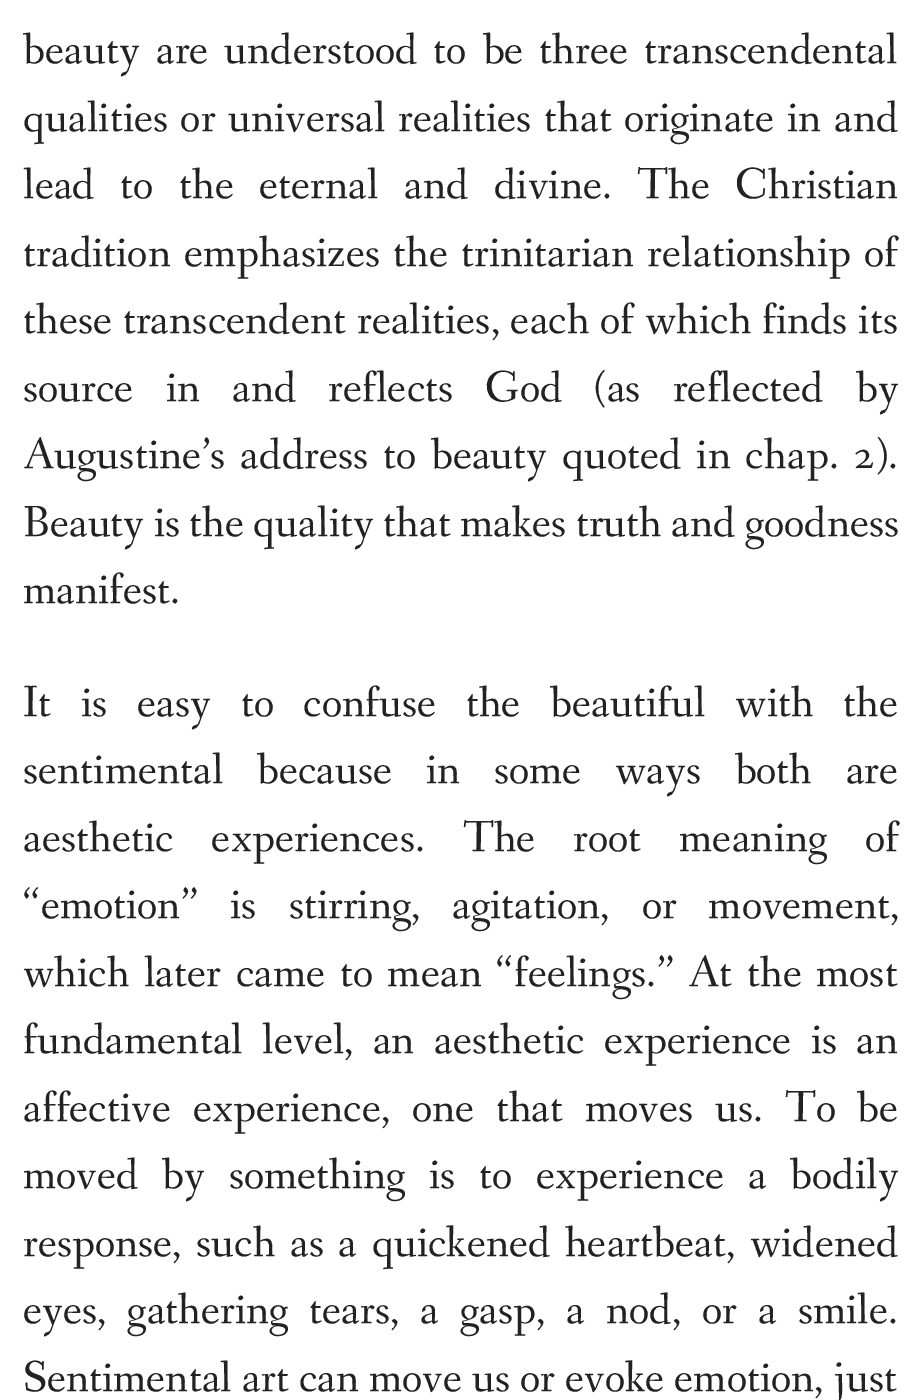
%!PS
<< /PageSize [919 1400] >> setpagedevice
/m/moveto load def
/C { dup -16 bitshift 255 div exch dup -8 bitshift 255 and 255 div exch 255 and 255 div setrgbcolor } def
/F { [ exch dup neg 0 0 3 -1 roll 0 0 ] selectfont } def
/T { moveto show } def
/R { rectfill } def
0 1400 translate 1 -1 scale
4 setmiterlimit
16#FFFFFF C
0 0 919 1400 R
/FanwoodText-Regular 45 F
16#222222 C
23 63 m 7 0 32 (beauty are understood to be three transcendental) widthshow
23 131 m 3.5 0 32 (qualities or universal realities that originate in and) widthshow
23 198 m 16.5 0 32 (lead to the eternal and divine. The Christian) widthshow
23 266 m 4.25 0 32 (tradition emphasizes the trinitarian relationship of) widthshow
23 333 m 1.75 0 32 (these transcendent realities, each of which finds its) widthshow
23 401 m 23 0 32 (source in and reflects God \(as reflected by) widthshow
23 468 m 5.75 0 32 (Augustine’s address to beauty quoted in chap. 2\).) widthshow
23 536 m .25 0 32 (Beauty is the quality that makes truth and goodness) widthshow
(manifest.) 23 603 T
23 716 m 20.75 0 32 (It is easy to confuse the beautiful with the) widthshow
23 783 m 24.5 0 32 (sentimental because in some ways both are) widthshow
23 851 m 29 0 32 (aesthetic experiences. The root meaning of) widthshow
23 918 m 23 0 32 (“emotion” is stirring, agitation, or movement,) widthshow
23 986 m 5.5 0 32 (which later came to mean “feelings.” At the most) widthshow
23 1053 m 10.25 0 32 (fundamental level, an aesthetic experience is an) widthshow
23 1121 m 12.75 0 32 (affective experience, one that moves us. To be) widthshow
23 1188 m 14.75 0 32 (moved by something is to experience a bodily) widthshow
23 1256 m 5.5 0 32 (response, such as a quickened heartbeat, widened) widthshow
23 1323 m 12 0 32 (eyes, gathering tears, a gasp, a nod, or a smile.) widthshow
23 1391 m 1 0 32 (Sentimental art can move us or evoke emotion, just) widthshow
showpage
